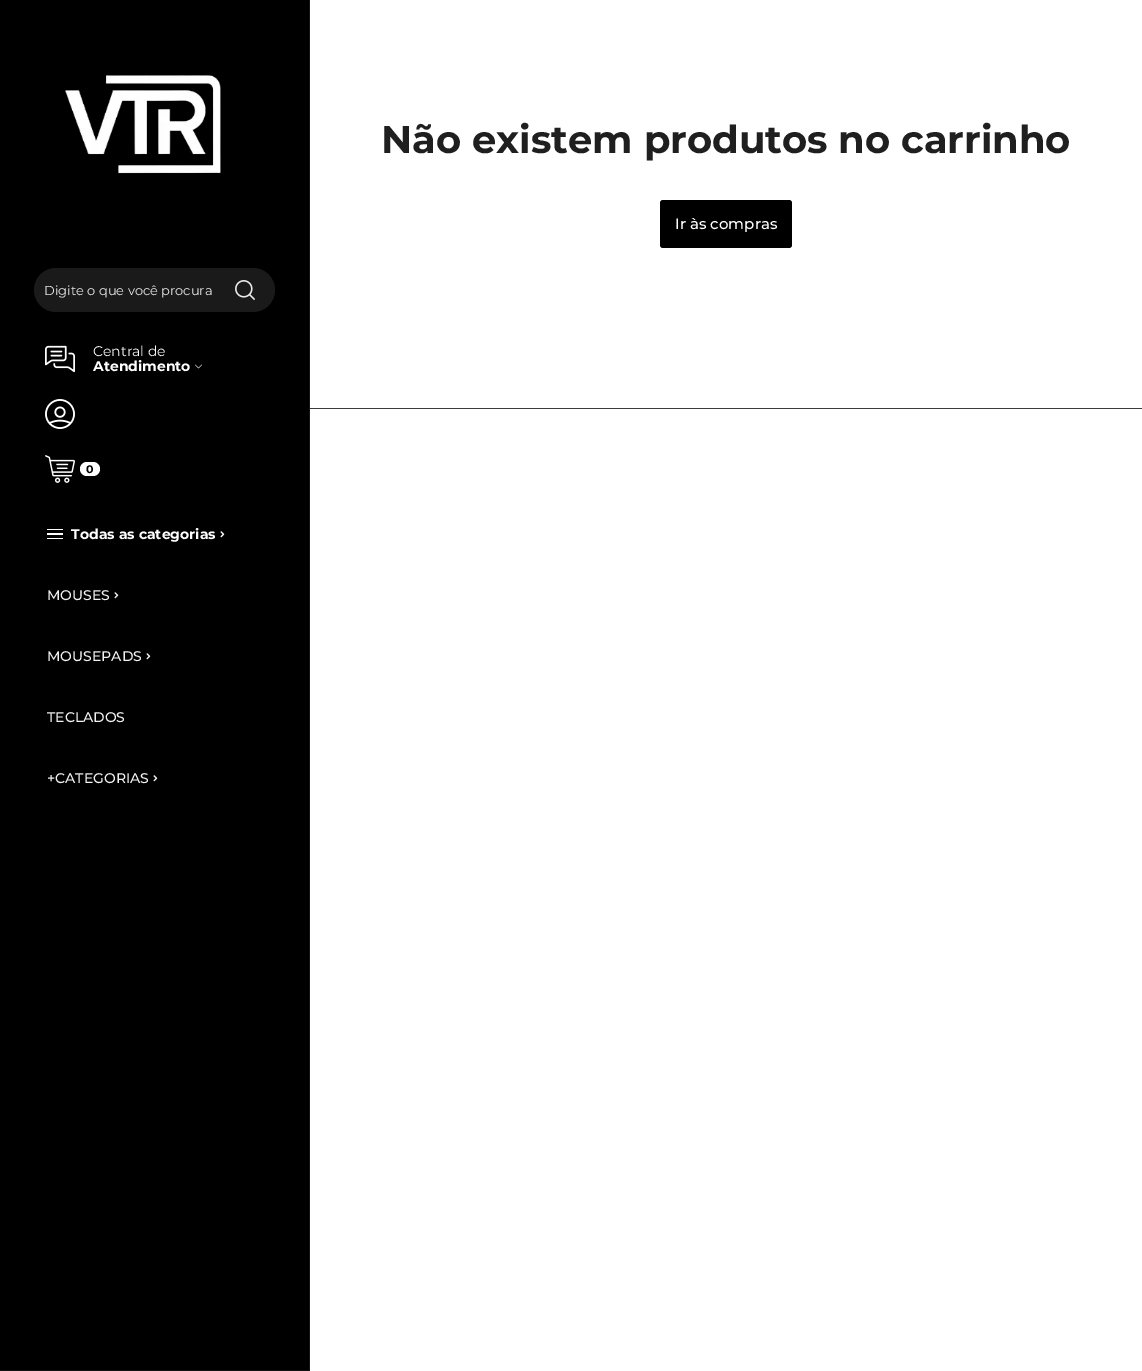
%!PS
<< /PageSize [1142 1371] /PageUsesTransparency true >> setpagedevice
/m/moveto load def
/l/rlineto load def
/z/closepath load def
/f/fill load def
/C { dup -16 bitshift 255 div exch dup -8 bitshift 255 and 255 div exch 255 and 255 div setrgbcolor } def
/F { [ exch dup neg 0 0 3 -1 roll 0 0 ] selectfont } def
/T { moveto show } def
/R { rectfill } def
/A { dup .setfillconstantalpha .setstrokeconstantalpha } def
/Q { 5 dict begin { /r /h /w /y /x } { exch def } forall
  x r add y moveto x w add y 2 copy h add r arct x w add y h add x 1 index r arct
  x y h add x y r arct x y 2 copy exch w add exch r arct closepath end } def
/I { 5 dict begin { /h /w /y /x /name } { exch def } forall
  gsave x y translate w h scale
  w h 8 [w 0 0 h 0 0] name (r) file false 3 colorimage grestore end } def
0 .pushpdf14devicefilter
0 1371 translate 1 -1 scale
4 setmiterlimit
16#FFFFFF C
0 0 1142 1371 R
/Montserrat-Bold 38.5 F
16#201F1F C
(Não existem produtos no carrinho) 381 153 T
16#000000 C
660 200 132 48 3 Q f
/Montserrat-Medium 15 F
16#FFFFFF C
(Ir às compras) 675 229 T
16#000000 C
0 0 310 1371 R
16#141414 C
310 0 m 0 1371 l -1 -1 l 0 -1370 l z f
0.13 A
16#909090 C
310 1371 m -310 0 l 0 -1 l 309 0 l z f
1 A
(1.rgb) 65 75 156 99 I
16#1A1A1A C
34 268 241 44 22 Q f
/Montserrat-Regular 13 F
16#E9E9E9 C
(Digite o que você procura) 44 295 T
(2.rgb) 235 280 20 20 I
(3.rgb) 45 345 30 28 I
/Montserrat-Regular 14 F
16#FFFFFF C
(Central de) 93 356 T
/Montserrat-Bold 14 F
(Atendimento) 93 371 T
(4.rgb) 195 364 7 5 I
(5.rgb) 45 399 30 30 I
(6.rgb) 45 455 30 28 I
80 462 20 14 7 Q f
/Montserrat-Bold 11 F
16#000000 C
(0) 86 473 T
16#FFFFFF C
47 538 16 1 R
47 533 16 2 R
47 529 16 1 R
/Montserrat-Bold 14 F
(Todas as categorias) 71 539 T
(7.rgb) 220 531 5 7 I
/Montserrat-Medium 14 F
16#F2F2F2 C
(MOUSES) 47 600 T
(8.rgb) 114 592 5 7 I
(MOUSEPADS) 47 661 T
(8.rgb) 146 653 5 7 I
(TECLADOS) 47 722 T
(+CATEGORIAS) 47 783 T
(8.rgb) 153 775 5 7 I
16#3B3A3A C
310 408 832 1 R
.poppdf14devicefilter showpage
